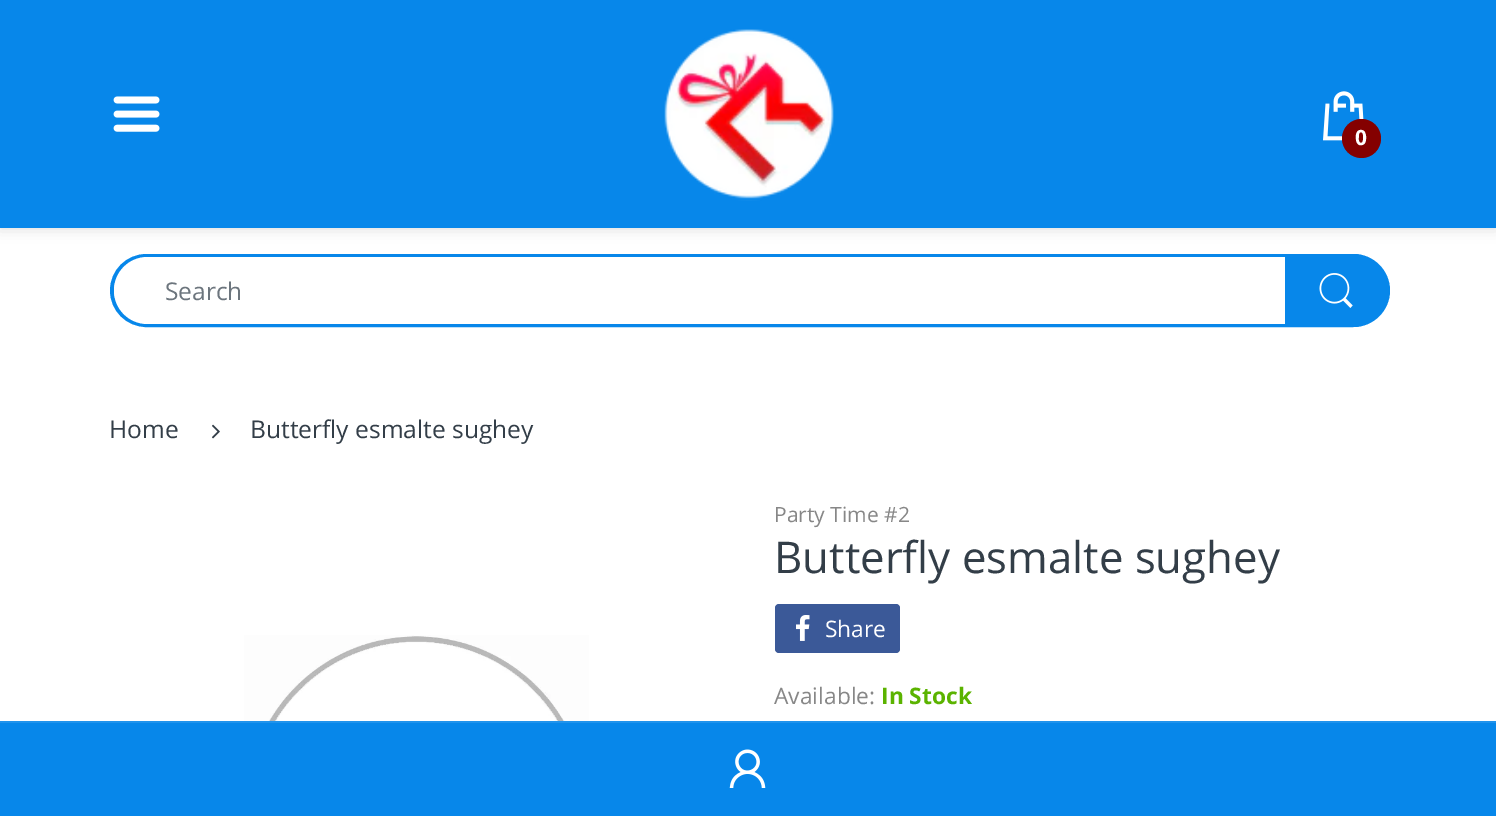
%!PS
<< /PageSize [1496 816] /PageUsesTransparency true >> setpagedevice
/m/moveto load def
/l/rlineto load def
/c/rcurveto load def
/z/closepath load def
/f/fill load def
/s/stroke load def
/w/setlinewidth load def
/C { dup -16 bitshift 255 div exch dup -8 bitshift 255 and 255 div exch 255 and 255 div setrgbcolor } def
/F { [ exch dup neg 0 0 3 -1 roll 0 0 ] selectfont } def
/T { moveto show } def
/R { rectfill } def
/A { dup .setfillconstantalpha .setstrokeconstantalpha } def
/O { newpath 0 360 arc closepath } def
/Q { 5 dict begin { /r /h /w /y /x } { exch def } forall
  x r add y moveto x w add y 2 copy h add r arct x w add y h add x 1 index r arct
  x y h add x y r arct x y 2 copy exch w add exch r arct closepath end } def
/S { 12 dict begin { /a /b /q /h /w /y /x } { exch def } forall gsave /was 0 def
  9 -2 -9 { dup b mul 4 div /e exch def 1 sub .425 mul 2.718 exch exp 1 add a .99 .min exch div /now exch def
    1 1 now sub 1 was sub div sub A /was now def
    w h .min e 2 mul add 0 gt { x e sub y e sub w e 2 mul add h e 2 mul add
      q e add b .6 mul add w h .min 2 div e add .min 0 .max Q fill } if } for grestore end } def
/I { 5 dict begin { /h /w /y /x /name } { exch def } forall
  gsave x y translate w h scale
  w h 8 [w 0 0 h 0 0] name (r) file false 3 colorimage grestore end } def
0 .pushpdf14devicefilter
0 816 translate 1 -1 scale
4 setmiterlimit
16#FFFFFF C
0 0 1496 816 R
16#C9C9C9 C
0 0 1496 228 0 7 .75 S
16#0787EA C
0 0 1496 228 R
(1.rgb) 113 96 47 36 I
(2.rgb) 664 29 170 172 I
(3.rgb) 1323 91 41 50 I
16#840000 C
1361.5 138.5 19.5 O f
/OpenSans-Bold 21 F
16#FFFFFF C
(0) 1355 145 T
16#0787EA C
4 w
112 256 1274 69 34.5 Q s
16#FFFFFF C
114 257 1270 67 33.5 Q f
/OpenSans-Regular 24.5 F
16#6C757D C
(Search) 165 300 T
16#0787EA C
1285 254 m 68.5 0 l 20 0 36.5 16.5 36.5 36.5 c 0 20 -16.5 36.5 -36.5 36.5 c -68.5 0 l z f
(4.rgb) 1319 273 34 35 I
16#333E48 C
(Home) 109 438 T
(5.rgb) 212 424 8 15 I
(Butterfly esmalte sughey) 250 438 T
(6.rgb) 244 635 345 86 I
/OpenSans-Regular 21 F
16#878787 C
(Party Time #2) 774 522 T
/OpenSans-Regular 43.75 F
16#333E48 C
(Butterfly esmalte sughey) 774 573 T
16#3B5998 C
775 604 125 49 4 Q f
(7.rgb) 796 615 14 26 I
/OpenSans-Regular 22.75 F
16#FFFFFF C
(Share) 825 637 T
16#878787 C
(Available:) 774 704 T
/OpenSans-Bold 22.75 F
16#5BB300 C
(In Stock) 881 704 T
16#0787EA C
0 723 1496 93 R
16#2093EC C
0 721 1496 2 R
(8.rgb) 729 749 37 39 I
.poppdf14devicefilter showpage
